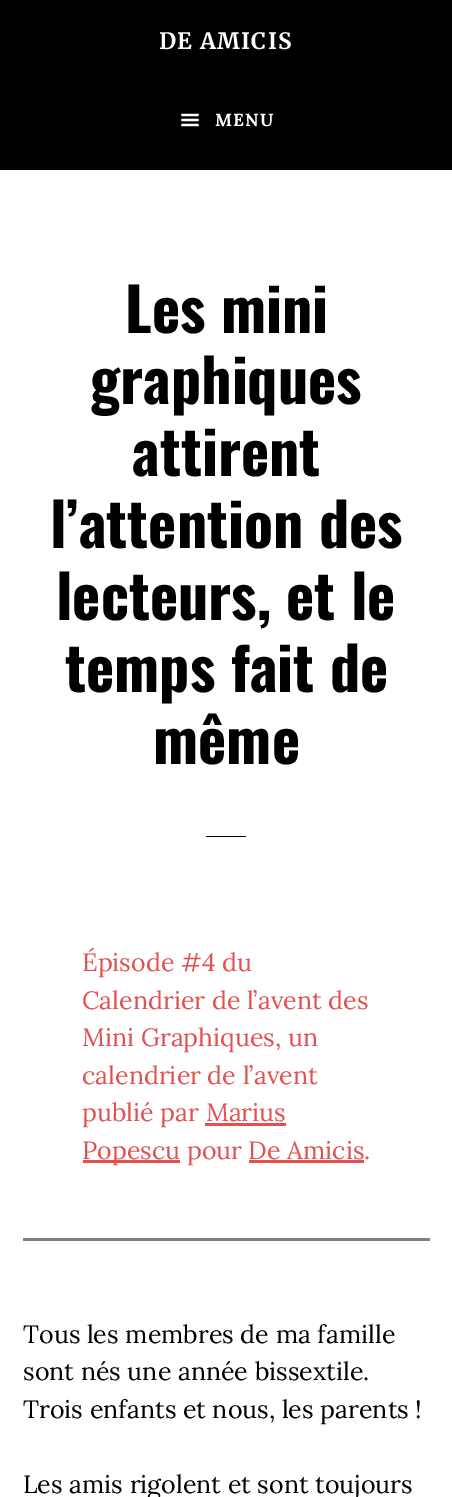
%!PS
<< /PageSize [452 1497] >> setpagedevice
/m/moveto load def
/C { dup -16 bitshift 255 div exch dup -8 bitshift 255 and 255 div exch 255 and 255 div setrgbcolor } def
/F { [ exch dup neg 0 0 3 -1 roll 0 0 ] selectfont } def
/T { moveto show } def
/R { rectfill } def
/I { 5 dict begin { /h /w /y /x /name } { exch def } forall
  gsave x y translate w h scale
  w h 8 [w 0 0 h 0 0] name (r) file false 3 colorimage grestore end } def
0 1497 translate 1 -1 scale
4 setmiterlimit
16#FFFFFF C
0 0 452 1497 R
16#000000 C
0 0 452 170 R
/Merriweather-Bold 22.5 F
16#FFFFFF C
159 49 m 1.25 0 (DE AMICIS) ashow
(1.rgb) 181 113 18 14 I
/Lora-Bold 17.5 F
215 126 m 1.25 0 (MENU) ashow
/Oswald-Bold 60 F
16#000000 C
(Les mini) 125 333 T
(graphiques) 90 404 T
(attirent) 132 476 T
(l’attention des) 50 548 T
(lecteurs, et le) 56 620 T
(temps fait de) 65 692 T
(même) 153 764 T
206 836 40 1 R
/Lora-Regular 25 F
16#E25050 C
(Épisode #4 du) 82 971 T
(Calendrier de l’avent des) 82 1009 T
(Mini Graphiques, un) 82 1046 T
(calendrier de l’avent) 82 1084 T
(publié par Marius) 82 1121 T
83 1160 97 3 R
(Popescu pour De Amicis.) 82 1159 T
205 1123 81 3 R
249 1160 115 3 R
16#808080 C
23 1238 407 3 R
16#000000 C
(Tous les membres de ma famille) 23 1343 T
(sont nés une année bissextile.) 23 1380 T
(Trois enfants et nous, les parents !) 23 1418 T
(Les amis rigolent et sont toujours) 23 1493 T
showpage
